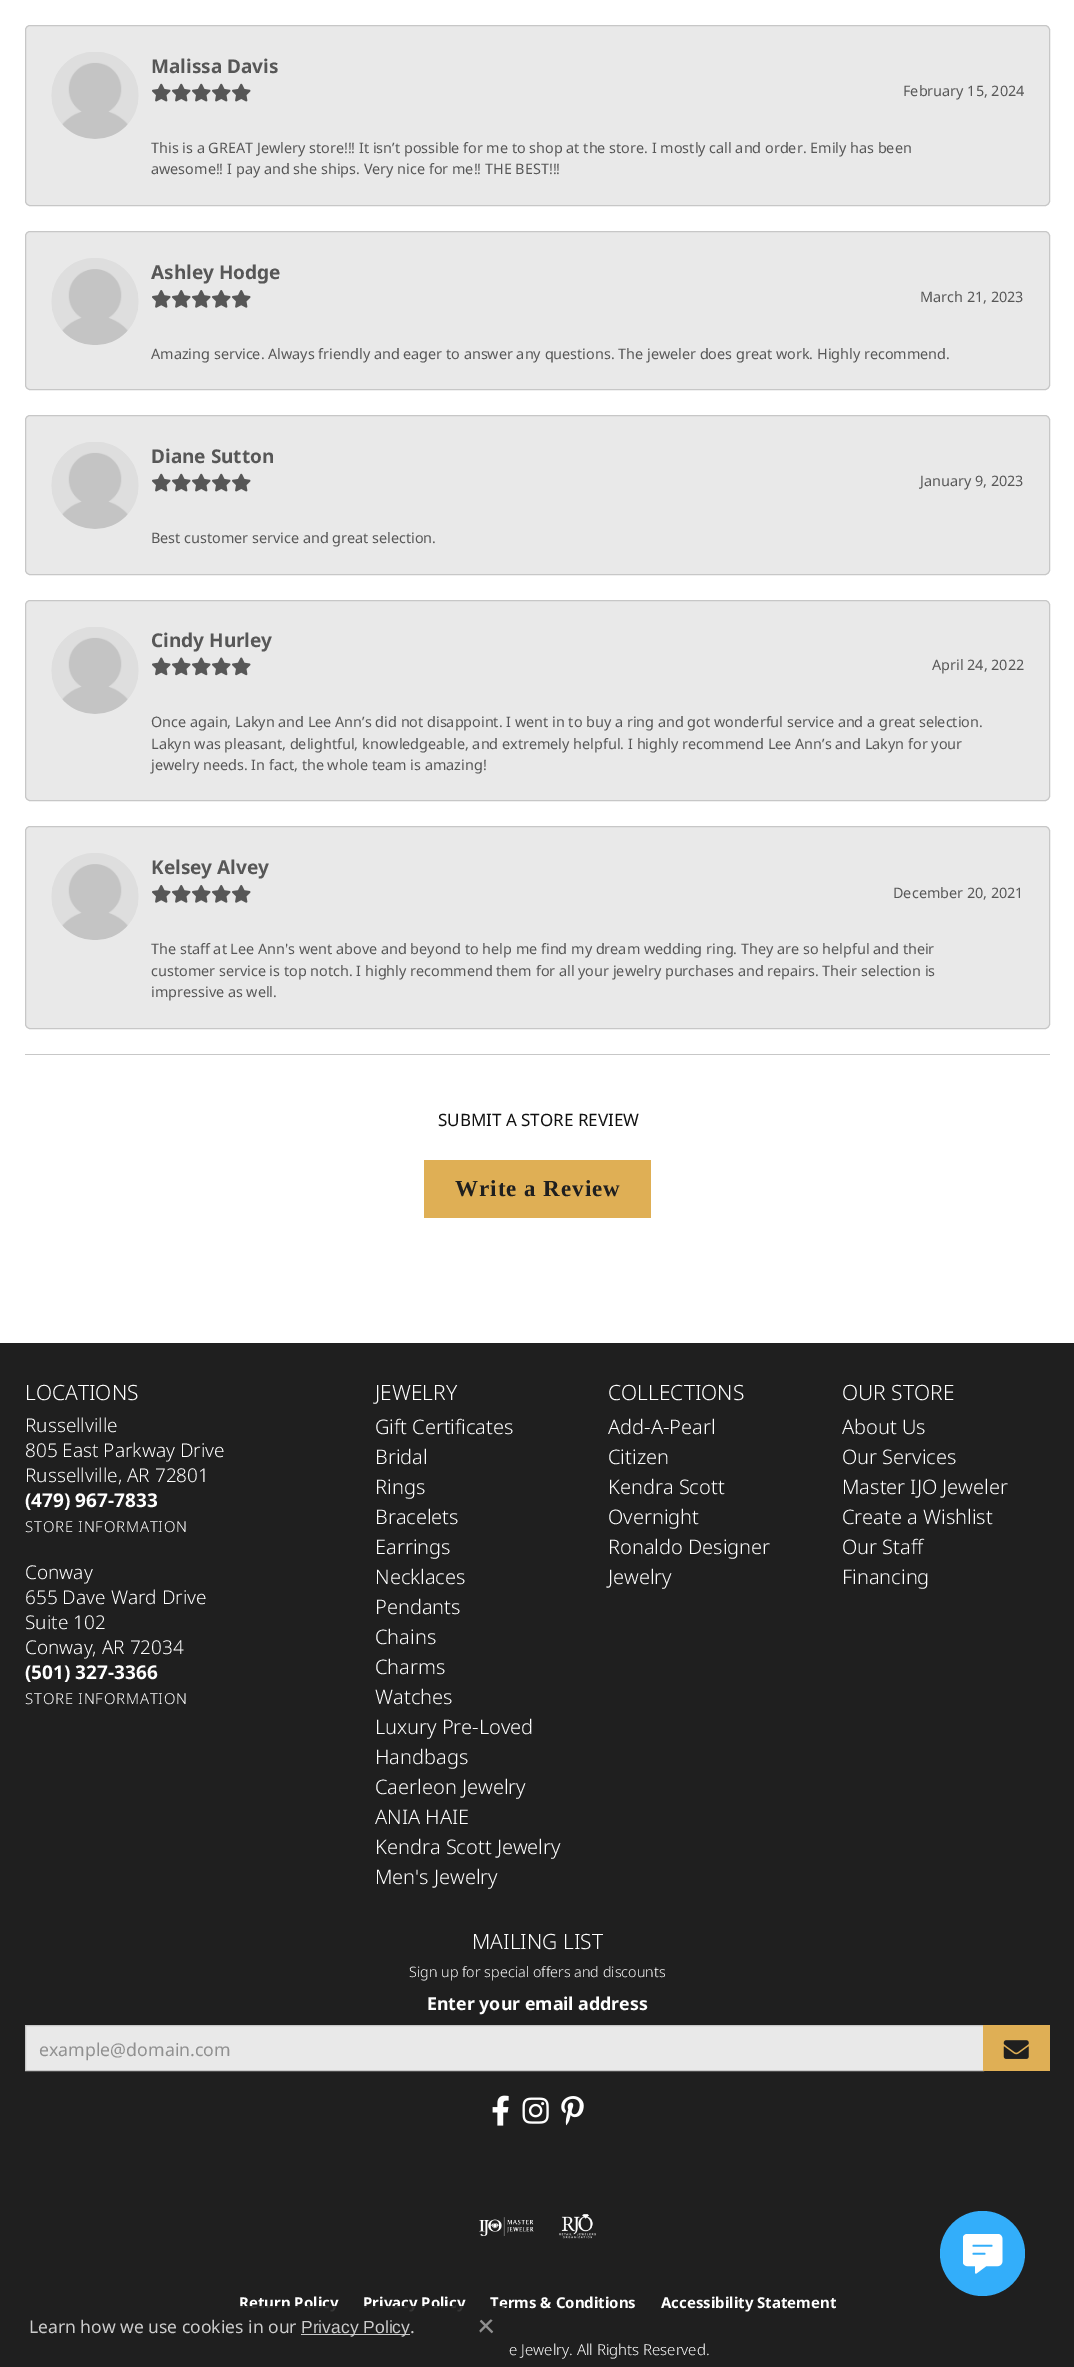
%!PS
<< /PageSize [1074 2367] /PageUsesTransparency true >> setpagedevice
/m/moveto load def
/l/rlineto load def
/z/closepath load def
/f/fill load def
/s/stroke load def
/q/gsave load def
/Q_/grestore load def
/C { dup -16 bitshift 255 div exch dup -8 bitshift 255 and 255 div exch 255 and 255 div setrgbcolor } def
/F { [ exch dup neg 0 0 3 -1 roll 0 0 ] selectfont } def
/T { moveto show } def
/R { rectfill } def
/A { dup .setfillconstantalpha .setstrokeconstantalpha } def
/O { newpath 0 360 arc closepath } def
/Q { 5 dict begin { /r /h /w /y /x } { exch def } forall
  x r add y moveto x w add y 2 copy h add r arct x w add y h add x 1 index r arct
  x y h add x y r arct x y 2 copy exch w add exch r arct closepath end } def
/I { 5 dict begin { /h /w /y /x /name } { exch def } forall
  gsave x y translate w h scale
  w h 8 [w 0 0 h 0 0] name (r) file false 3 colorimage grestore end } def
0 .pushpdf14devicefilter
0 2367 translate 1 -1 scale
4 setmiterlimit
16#1F1F1F C
0 0 1074 2367 R
16#FFFFFF C
0 0 1074 1343 R
16#C7C7C7 C
25 1054 1025 1 R
16#E9E9E9 C
25.5 25.5 1024 180 4.5 Q q f Q_
16#C7C7C7 C
s
(1.rgb) 51 52 88 87 I
/NotoSans-Bold 19 F
16#575757 C
(Malissa Davis) 151 73 T
(2.rgb) 152 83 19 19 I
(2.rgb) 172 83 19 19 I
(2.rgb) 192 83 19 19 I
(2.rgb) 212 83 19 19 I
(2.rgb) 232 83 19 19 I
/NotoSans-Regular 14.38 F
(February 15, 2024) 903 96 T
(This is a GREAT Jewlery store!!! It isn’t possible for me to shop at the store. I mostly call and order. Emily has been) 151 153 T
(awesome!! I pay and she ships. Very nice for me!! THE BEST!!!) 151 174 T
16#E9E9E9 C
25.5 231.5 1024 158 4.5 Q q f Q_
16#C7C7C7 C
s
(3.rgb) 51 258 88 87 I
/NotoSans-Bold 19 F
16#575757 C
(Ashley Hodge) 151 279 T
(4.rgb) 152 290 19 18 I
(4.rgb) 172 290 19 18 I
(4.rgb) 192 290 19 18 I
(4.rgb) 212 290 19 18 I
(4.rgb) 232 290 19 18 I
/NotoSans-Regular 14.38 F
(March 21, 2023) 920 302 T
(Amazing service. Always friendly and eager to answer any questions. The jeweler does great work. Highly recommend.) 151 359 T
16#E9E9E9 C
25.5 415.5 1024 159 4.5 Q q f Q_
16#C7C7C7 C
s
(5.rgb) 51 442 88 87 I
/NotoSans-Bold 19 F
16#575757 C
(Diane Sutton) 151 463 T
(2.rgb) 152 473 19 19 I
(2.rgb) 172 473 19 19 I
(2.rgb) 192 473 19 19 I
(2.rgb) 212 473 19 19 I
(2.rgb) 232 473 19 19 I
/NotoSans-Regular 14.38 F
(January 9, 2023) 920 486 T
(Best customer service and great selection.) 151 543 T
16#E9E9E9 C
25.5 600.5 1024 200 4.5 Q q f Q_
16#C7C7C7 C
s
(6.rgb) 51 627 88 87 I
/NotoSans-Bold 19 F
16#575757 C
(Cindy Hurley) 151 647 T
(7.rgb) 152 657 19 19 I
(7.rgb) 172 657 19 19 I
(7.rgb) 192 657 19 19 I
(7.rgb) 212 657 19 19 I
(7.rgb) 232 657 19 19 I
/NotoSans-Regular 14.38 F
(April 24, 2022) 932 670 T
(Once again, Lakyn and Lee Ann’s did not disappoint. I went in to buy a ring and got wonderful service and a great selection.) 151 727 T
(Lakyn was pleasant, delightful, knowledgeable, and extremely helpful. I highly recommend Lee Ann’s and Lakyn for your) 151 749 T
(jewelry needs. In fact, the whole team is amazing!) 151 770 T
16#E9E9E9 C
25.5 826.5 1024 202 4.5 Q q f Q_
16#C7C7C7 C
s
(3.rgb) 51 853 88 87 I
/NotoSans-Bold 19 F
16#575757 C
(Kelsey Alvey) 151 874 T
(4.rgb) 152 885 19 18 I
(4.rgb) 172 885 19 18 I
(4.rgb) 192 885 19 18 I
(4.rgb) 212 885 19 18 I
(4.rgb) 232 885 19 18 I
/NotoSans-Regular 14.38 F
(December 20, 2021) 893 898 T
(The staff at Lee Ann's went above and beyond to help me find my dream wedding ring. They are so helpful and their) 151 954 T
(customer service is top notch. I highly recommend them for all your jewelry purchases and repairs. Their selection is) 151 976 T
(impressive as well.) 151 997 T
/NotoSans-Regular 17 F
16#111111 C
(SUBMIT A STORE REVIEW) 438 1126 T
16#DFAF55 C
424 1160 227 58 R
/LiberationSerif-Bold 23 F
16#1F1F1F C
455 1196 m 1 0 (Write a Review) ashow
/NotoSans-Light 21 F
16#FFFFFF C
(LOCATIONS) 25 1400 T
/NotoSans-Light 19 F
(Russellville) 25 1432 T
(805 East Parkway Drive) 25 1457 T
(Russellville, AR 72801) 25 1482 T
/NotoSans-Bold 19 F
(\(479\) 967-7833) 25 1507 T
/NotoSans-Light 15 F
25 1532 m .75 0 (STORE INFORMATION) ashow
/NotoSans-Light 19 F
(Conway) 25 1579 T
(655 Dave Ward Drive) 25 1604 T
(Suite 102) 25 1629 T
(Conway, AR 72034) 25 1654 T
/NotoSans-Bold 19 F
(\(501\) 327-3366) 25 1679 T
/NotoSans-Light 15 F
25 1704 m .75 0 (STORE INFORMATION) ashow
/NotoSans-Light 21 F
(JEWELRY) 375 1400 T
/NotoSans-Light 20 F
(Gift Certificates) 375 1434 T
(Bridal) 375 1464 T
(Rings) 375 1494 T
(Bracelets) 375 1524 T
(Earrings) 375 1554 T
(Necklaces) 375 1584 T
(Pendants) 375 1614 T
(Chains) 375 1644 T
(Charms) 375 1674 T
(Watches) 375 1704 T
(Luxury Pre-Loved) 375 1734 T
(Handbags) 375 1764 T
(Caerleon Jewelry) 375 1794 T
(ANIA HAIE) 375 1824 T
(Kendra Scott Jewelry) 375 1854 T
(Men's Jewelry) 375 1884 T
/NotoSans-Light 21 F
(COLLECTIONS) 608 1400 T
/NotoSans-Light 20 F
(Add-A-Pearl) 608 1434 T
(Citizen) 608 1464 T
(Kendra Scott) 608 1494 T
(Overnight) 608 1524 T
(Ronaldo Designer) 608 1554 T
(Jewelry) 608 1584 T
/NotoSans-Light 21 F
(OUR STORE) 842 1400 T
/NotoSans-Light 20 F
(About Us) 842 1434 T
(Our Services) 842 1464 T
(Master IJO Jeweler) 842 1494 T
(Create a Wishlist) 842 1524 T
(Our Staff) 842 1554 T
(Financing) 842 1584 T
/NotoSans-Light 21 F
(MAILING LIST) 472 1949 T
/NotoSans-Light 14.38 F
(Sign up for special offers and discounts) 409 1977 T
/NotoSans-Bold 17.75 F
(Enter your email address) 427 2010 T
16#E9E9E9 C
25.5 2025.5 m 958 0 l 0 45 l -958 0 l z q f Q_
16#C7C7C7 C
s
/NotoSans-Regular 17.75 F
16#909090 C
(example@domain.com) 39 2056 T
16#DFAF55 C
983 2025 67 46 R
(8.rgb) 1003 2040 26 19 I
(9.rgb) 492 2095 17 31 I
(10.rgb) 522 2097 27 27 I
(11.rgb) 561 2096 23 30 I
(12.rgb) 479 2217 55 19 I
(13.rgb) 559 2214 37 25 I
/NotoSans-Bold 15 F
16#FFFFFF C
(Return Policy) 239 2308 T
(Privacy Policy) 363 2308 T
(Terms & Conditions) 490 2308 T
(Accessibility Statement) 661 2308 T
/NotoSans-Light 15 F
(e Jewelry. All Rights Reserved.) 509 2355 T
16#33AEFA C
982.5 2253.5 42.5 O f
(14.rgb) 963 2234 40 40 I
0.9 A
16#1F1F1F C
19 2306 487 43 5 Q f
/NotoSans-Regular 17.5 F
1 A
16#CCCCCC C
(Learn how we use cookies in our) 29 2333 T
301 2334 109 1 R
/LiberationSans-Regular 17.5 F
(Privacy Policy) 301 2333 T
/NotoSans-Regular 17.5 F
(.) 410 2333 T
(15.rgb) 479 2319 15 15 I
.poppdf14devicefilter showpage
